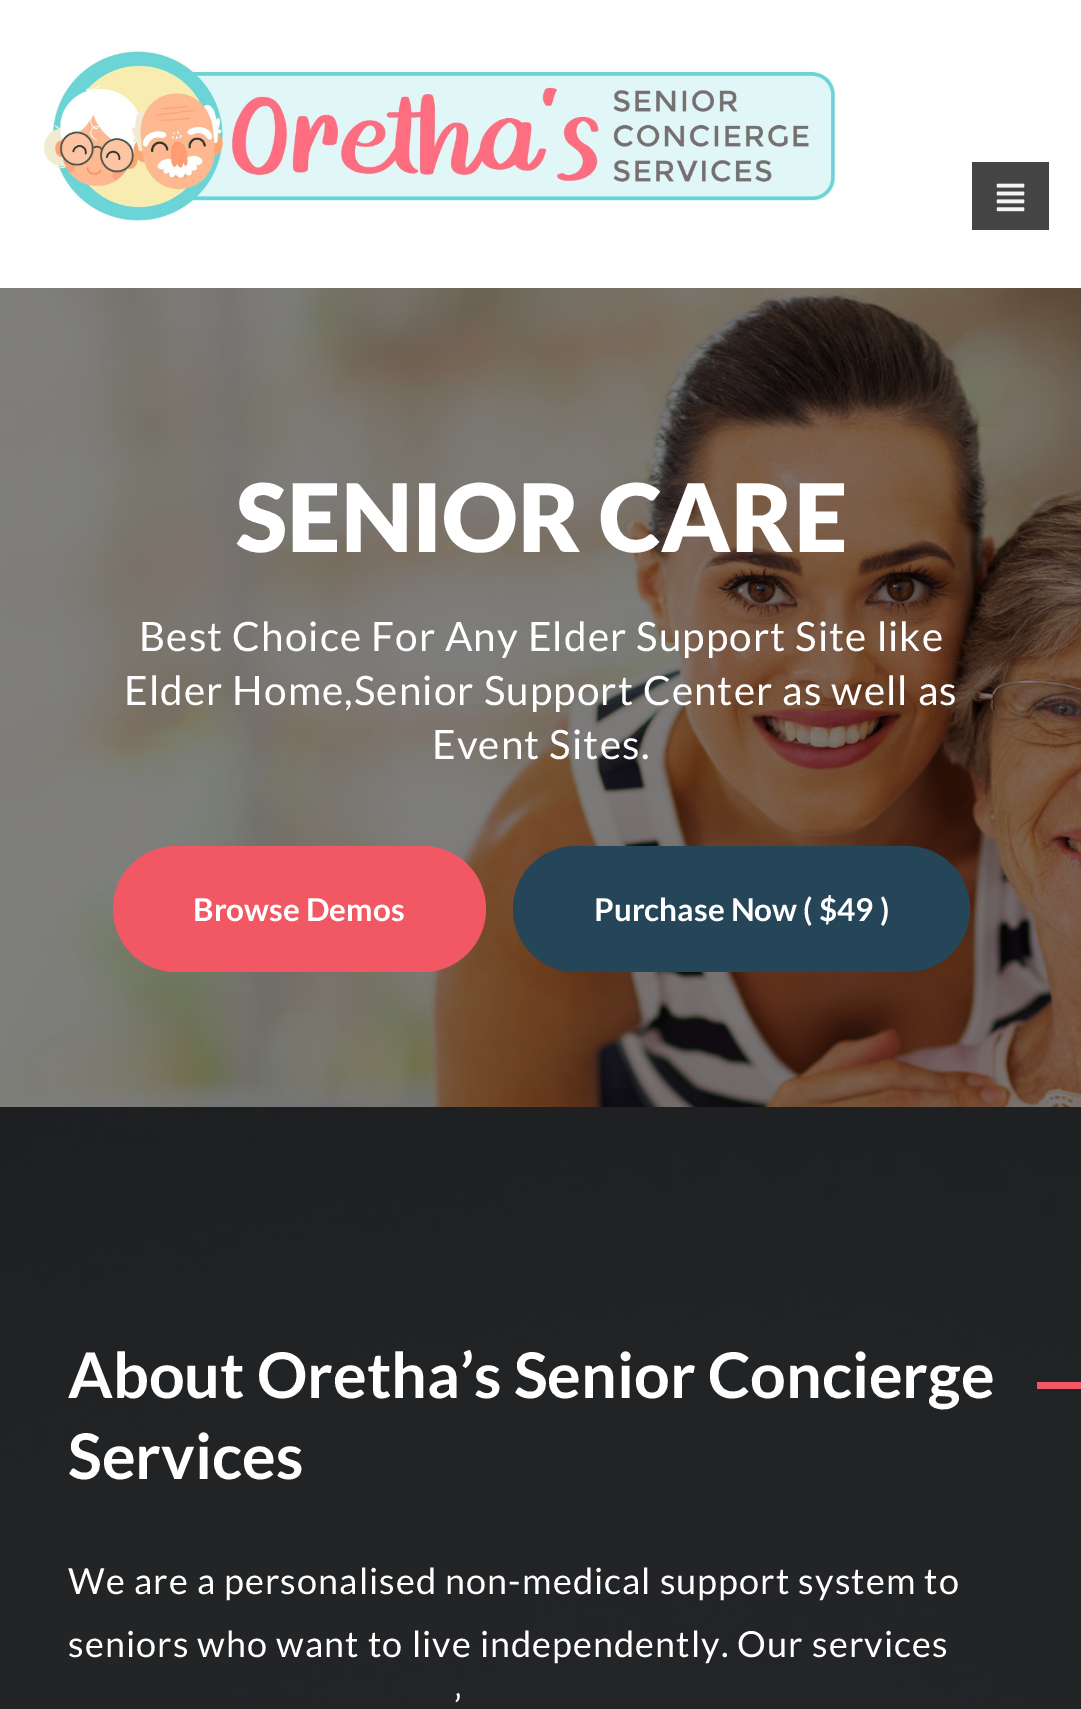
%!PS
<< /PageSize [1081 1709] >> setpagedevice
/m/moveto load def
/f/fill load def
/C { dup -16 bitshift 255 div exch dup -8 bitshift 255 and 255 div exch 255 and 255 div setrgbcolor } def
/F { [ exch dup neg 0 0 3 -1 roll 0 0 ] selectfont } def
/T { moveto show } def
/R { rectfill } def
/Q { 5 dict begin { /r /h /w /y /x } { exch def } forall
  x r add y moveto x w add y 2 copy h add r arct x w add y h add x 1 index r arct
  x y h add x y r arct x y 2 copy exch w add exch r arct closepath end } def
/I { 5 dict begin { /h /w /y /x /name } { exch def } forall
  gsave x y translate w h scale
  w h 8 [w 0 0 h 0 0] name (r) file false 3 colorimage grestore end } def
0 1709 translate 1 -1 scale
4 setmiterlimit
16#FFFFFF C
0 0 1081 1709 R
(1.rgb) 44 49 792 172 I
16#444444 C
972 162 77 68 R
(2.rgb) 996 183 29 29 I
(3.rgb) 0 288 1081 819 I
/Lato-Black 94.5 F
16#FFFFFF C
(SENIOR CARE) 236 552 T
/Lato-Regular 40.5 F
139 651 m 1.08 0 (Best Choice For Any Elder Support Site like) ashow
124 705 m 1.08 0 (Elder Home,Senior Support Center as well as) ashow
432 759 m 1.08 0 (Event Sites.) ashow
16#F25764 C
113 846 373 126 63 Q f
/Lato-Bold 31.5 F
16#FFFFFF C
(Browse Demos) 193 921 T
16#254559 C
513 846 457 126 63 Q f
16#FFFFFF C
(Purchase Now \( $49 \)) 594 921 T
(4.rgb) 0 1107 1081 602 I
/Lato-Bold 63 F
(About Oretha’s Senior Concierge) 68 1398 T
16#F25764 C
1037 1382 44 7 R
16#FFFFFF C
(Services) 68 1479 T
/Lato-Regular 36 F
68 1594 m 1.08 0 (We are a personalised non-medical support system to) ashow
68 1657 m 1.08 0 (seniors who want to live independently. Our services) ashow
454 1720 m 1.08 0 (’) ashow
showpage
